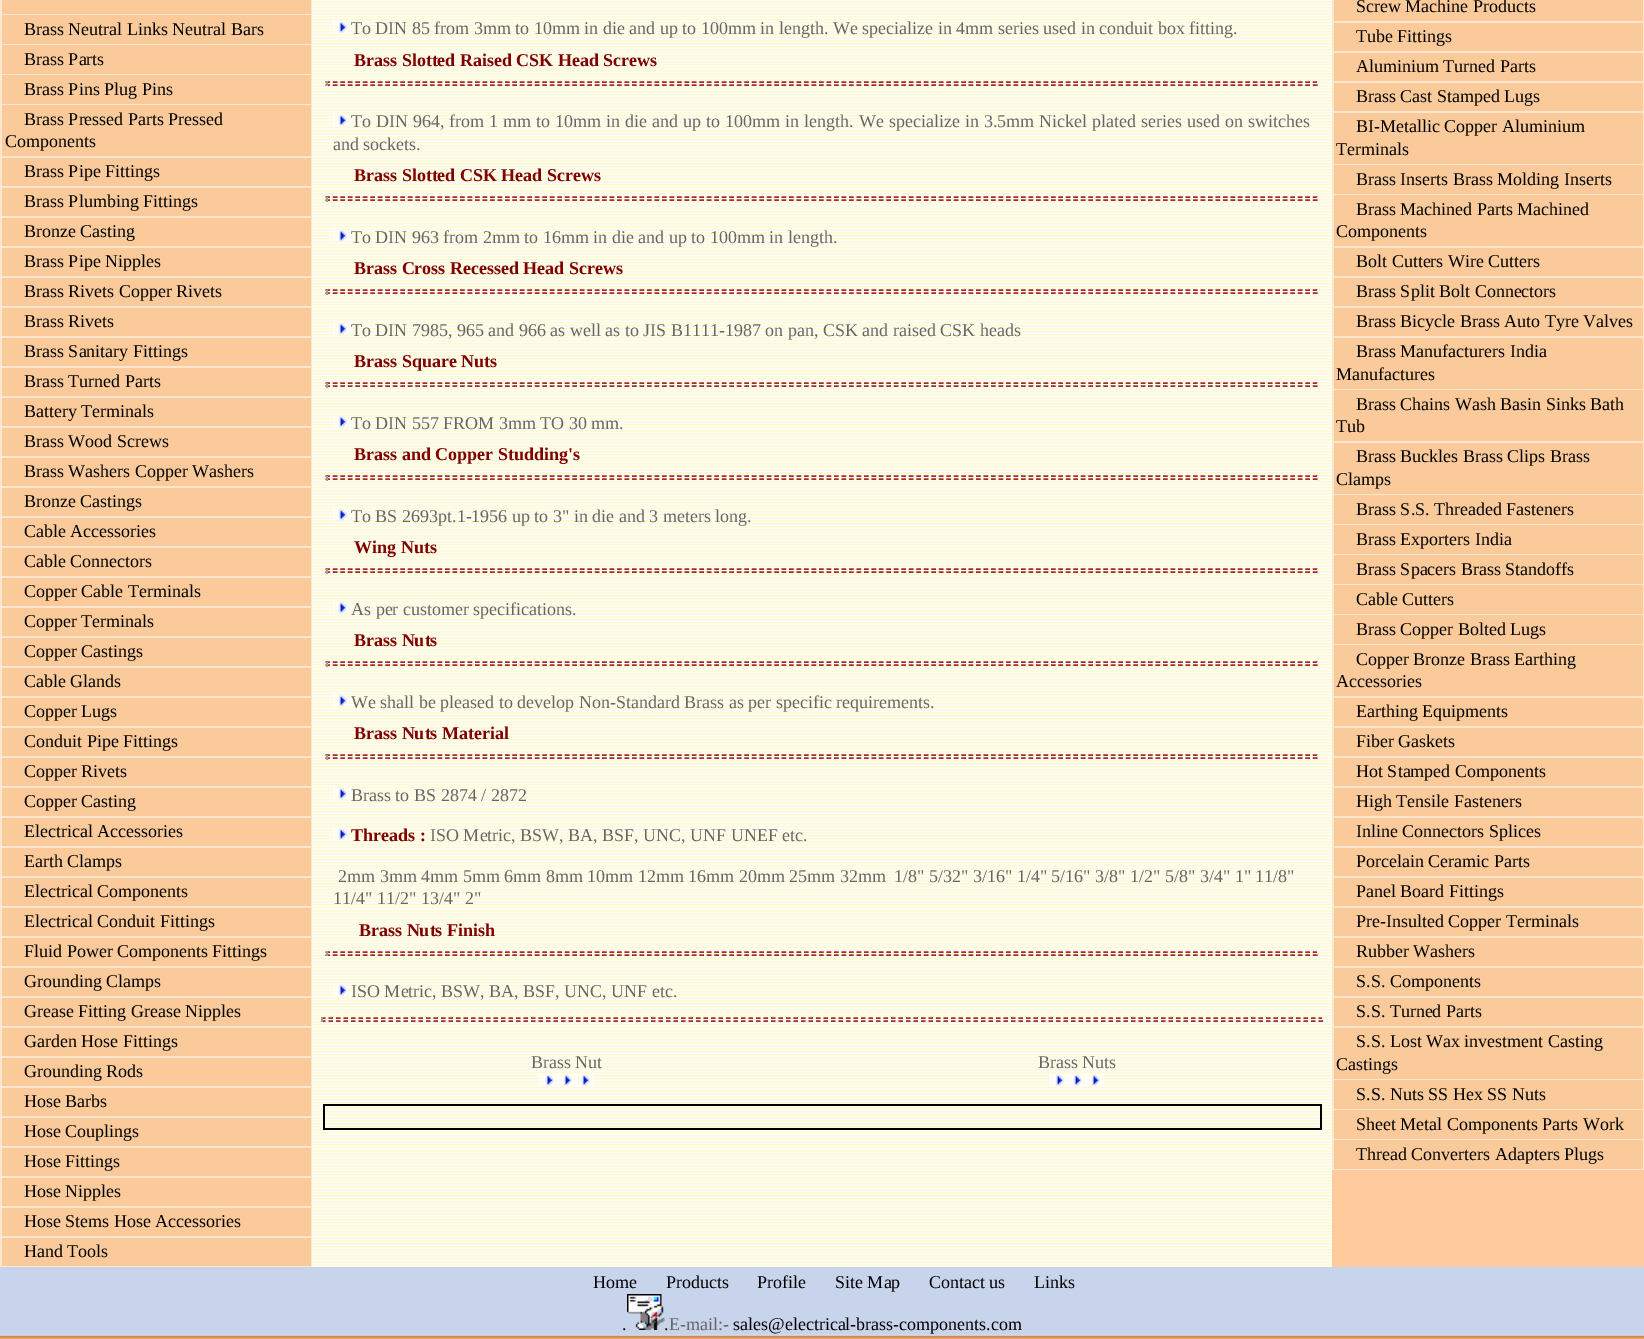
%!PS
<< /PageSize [1644 1339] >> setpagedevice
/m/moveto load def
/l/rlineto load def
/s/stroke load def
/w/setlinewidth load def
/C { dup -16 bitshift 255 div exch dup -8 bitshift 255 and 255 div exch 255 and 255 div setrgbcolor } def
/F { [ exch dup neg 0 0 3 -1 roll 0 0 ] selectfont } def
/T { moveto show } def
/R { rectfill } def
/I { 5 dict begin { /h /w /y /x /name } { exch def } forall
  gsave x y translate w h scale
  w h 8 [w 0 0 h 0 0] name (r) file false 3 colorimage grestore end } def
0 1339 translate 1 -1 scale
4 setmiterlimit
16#FFFFFF C
0 0 1644 1339 R
(1.rgb) 312 0 1020 1267 I
16#FFE7CE C
0 0 312 1267 R
16#FACA9A C
2 0 309 14 R
2 15 309 29 R
/LiberationSerif-Regular 18 F
16#000000 C
(Brass Neutral Links Neutral Bars) 24 35 T
16#FACA9A C
2 45 309 29 R
16#000000 C
(Brass Parts) 24 65 T
16#FACA9A C
2 75 309 29 R
16#000000 C
(Brass Pins Plug Pins) 24 95 T
16#FACA9A C
2 105 309 51 R
16#000000 C
(Brass Pressed Parts Pressed) 24 125 T
(Components) 5 147 T
16#FACA9A C
2 158 309 28 R
16#000000 C
(Brass Pipe Fittings) 24 177 T
16#FACA9A C
2 188 309 28 R
16#000000 C
(Brass Plumbing Fittings) 24 207 T
16#FACA9A C
2 218 309 28 R
16#000000 C
(Bronze Casting) 24 237 T
16#FACA9A C
2 248 309 28 R
16#000000 C
(Brass Pipe Nipples) 24 267 T
16#FACA9A C
2 278 309 28 R
16#000000 C
(Brass Rivets Copper Rivets) 24 297 T
16#FACA9A C
2 308 309 28 R
16#000000 C
(Brass Rivets) 24 327 T
16#FACA9A C
2 338 309 28 R
16#000000 C
(Brass Sanitary Fittings) 24 357 T
16#FACA9A C
2 368 309 28 R
16#000000 C
(Brass Turned Parts) 24 387 T
16#FACA9A C
2 398 309 28 R
16#000000 C
(Battery Terminals) 24 417 T
16#FACA9A C
2 428 309 28 R
16#000000 C
(Brass Wood Screws) 24 447 T
16#FACA9A C
2 458 309 28 R
16#000000 C
(Brass Washers Copper Washers) 24 477 T
16#FACA9A C
2 488 309 28 R
16#000000 C
(Bronze Castings) 24 507 T
16#FACA9A C
2 518 309 28 R
16#000000 C
(Cable Accessories) 24 537 T
16#FACA9A C
2 548 309 28 R
16#000000 C
(Cable Connectors) 24 567 T
16#FACA9A C
2 578 309 28 R
16#000000 C
(Copper Cable Terminals) 24 597 T
16#FACA9A C
2 608 309 28 R
16#000000 C
(Copper Terminals) 24 627 T
16#FACA9A C
2 638 309 28 R
16#000000 C
(Copper Castings) 24 657 T
16#FACA9A C
2 668 309 28 R
16#000000 C
(Cable Glands) 24 687 T
16#FACA9A C
2 698 309 28 R
16#000000 C
(Copper Lugs) 24 717 T
16#FACA9A C
2 728 309 28 R
16#000000 C
(Conduit Pipe Fittings) 24 747 T
16#FACA9A C
2 758 309 28 R
16#000000 C
(Copper Rivets) 24 777 T
16#FACA9A C
2 788 309 28 R
16#000000 C
(Copper Casting) 24 807 T
16#FACA9A C
2 818 309 28 R
16#000000 C
(Electrical Accessories) 24 837 T
16#FACA9A C
2 848 309 28 R
16#000000 C
(Earth Clamps) 24 867 T
16#FACA9A C
2 878 309 28 R
16#000000 C
(Electrical Components) 24 897 T
16#FACA9A C
2 908 309 28 R
16#000000 C
(Electrical Conduit Fittings) 24 927 T
16#FACA9A C
2 938 309 28 R
16#000000 C
(Fluid Power Components Fittings) 24 957 T
16#FACA9A C
2 968 309 28 R
16#000000 C
(Grounding Clamps) 24 987 T
16#FACA9A C
2 998 309 28 R
16#000000 C
(Grease Fitting Grease Nipples) 24 1017 T
16#FACA9A C
2 1028 309 28 R
16#000000 C
(Garden Hose Fittings) 24 1047 T
16#FACA9A C
2 1058 309 28 R
16#000000 C
(Grounding Rods) 24 1077 T
16#FACA9A C
2 1088 309 28 R
16#000000 C
(Hose Barbs) 24 1107 T
16#FACA9A C
2 1118 309 28 R
16#000000 C
(Hose Couplings) 24 1137 T
16#FACA9A C
2 1148 309 28 R
16#000000 C
(Hose Fittings) 24 1167 T
16#FACA9A C
2 1178 309 28 R
16#000000 C
(Hose Nipples) 24 1197 T
16#FACA9A C
2 1208 309 28 R
16#000000 C
(Hose Stems Hose Accessories) 24 1227 T
16#FACA9A C
2 1238 309 28 R
16#000000 C
(Hand Tools) 24 1257 T
(2.rgb) 333 20 18 14 I
16#666666 C
(To DIN 85 from 3mm to 10mm in die and up to 100mm in length. We specialize in 4mm series used in conduit box fitting.) 351 34 T
/LiberationSerif-Bold 18 F
16#800000 C
(Brass Slotted Raised CSK Head Screws) 354 66 T
16#A52A2A C
1.5 w
[4.5 2.98] 0 setdash
325.5 82 m 993 0 l s
16#EEEEEE C
1317 81 2 5 R
16#A52A2A C
325.5 85 m 993 0 l s
16#9F9F9F C
326 81 2 5 R
(3.rgb) 333 113 18 14 I
/LiberationSerif-Regular 18 F
16#666666 C
(To) 351 127 T
376 127 m .5 0 32 (DIN 964, from 1 mm to 10mm in die and up to 100mm in length.) widthshow
859 127 m .5 0 32 (We specialize in 3.5mm Nickel plated series used on switches) widthshow
(and sockets.) 333 150 T
/LiberationSerif-Bold 18 F
16#800000 C
(Brass Slotted CSK Head Screws) 354 181 T
16#A52A2A C
325.5 197 m 993 0 l s
16#EEEEEE C
1317 197 2 5 R
16#A52A2A C
325.5 200 m 993 0 l s
16#9F9F9F C
326 197 2 5 R
(4.rgb) 333 229 18 14 I
/LiberationSerif-Regular 18 F
16#666666 C
(To DIN 963 from 2mm to 16mm in die and up to 100mm in length.) 351 243 T
/LiberationSerif-Bold 18 F
16#800000 C
(Brass Cross Recessed Head Screws) 354 274 T
16#A52A2A C
325.5 290 m 993 0 l s
16#EEEEEE C
1317 290 2 5 R
16#A52A2A C
325.5 293 m 993 0 l s
16#9F9F9F C
326 290 2 5 R
(5.rgb) 333 322 18 14 I
/LiberationSerif-Regular 18 F
16#666666 C
(To DIN 7985, 965 and 966 as well as to JIS B1111-1987 on pan, CSK and raised CSK heads) 351 336 T
/LiberationSerif-Bold 18 F
16#800000 C
(Brass Square Nuts) 354 367 T
16#A52A2A C
325.5 383 m 993 0 l s
16#EEEEEE C
1317 383 2 5 R
16#A52A2A C
325.5 386 m 993 0 l s
16#9F9F9F C
326 383 2 5 R
(6.rgb) 333 415 18 14 I
/LiberationSerif-Regular 18 F
16#666666 C
(To DIN 557 FROM 3mm TO 30 mm.) 351 429 T
/LiberationSerif-Bold 18 F
16#800000 C
(Brass and Copper Studding's) 354 460 T
16#A52A2A C
325.5 476 m 993 0 l s
16#EEEEEE C
1317 476 2 5 R
16#A52A2A C
325.5 479 m 993 0 l s
16#9F9F9F C
326 476 2 5 R
(7.rgb) 333 508 18 14 I
/LiberationSerif-Regular 18 F
16#666666 C
(To BS 2693pt.1-1956 up to 3" in die and 3 meters long.) 351 522 T
/LiberationSerif-Bold 18 F
16#800000 C
(Wing Nuts) 354 553 T
16#A52A2A C
325.5 569 m 993 0 l s
16#EEEEEE C
1317 569 2 5 R
16#A52A2A C
325.5 572 m 993 0 l s
16#9F9F9F C
326 569 2 5 R
(8.rgb) 333 601 18 14 I
/LiberationSerif-Regular 18 F
16#666666 C
(As per customer specifications.) 351 615 T
/LiberationSerif-Bold 18 F
16#800000 C
(Brass Nuts) 354 646 T
16#A52A2A C
325.5 662 m 993 0 l s
16#EEEEEE C
1317 662 2 5 R
16#A52A2A C
325.5 665 m 993 0 l s
16#9F9F9F C
326 662 2 5 R
(9.rgb) 333 694 18 14 I
/LiberationSerif-Regular 18 F
16#666666 C
(We shall be pleased to develop Non-Standard Brass as per specific requirements.) 351 708 T
/LiberationSerif-Bold 18 F
16#800000 C
(Brass Nuts Material) 354 739 T
16#A52A2A C
325.5 755 m 993 0 l s
16#EEEEEE C
1317 755 2 5 R
16#A52A2A C
325.5 758 m 993 0 l s
16#9F9F9F C
326 755 2 5 R
(10.rgb) 333 787 18 14 I
/LiberationSerif-Regular 18 F
16#666666 C
(Brass to BS 2874 / 2872) 351 801 T
(11.rgb) 333 827 18 14 I
/LiberationSerif-Bold 18 F
16#800000 C
(Threads :) 351 841 T
/LiberationSerif-Regular 18 F
16#666666 C
(ISO Metric, BSW, BA, BSF, UNC, UNF UNEF etc.) 430 841 T
(2mm 3mm 4mm 5mm 6mm 8mm 10mm 12mm 16mm 20mm 25mm 32mm) 338 882 T
(1/8" 5/32" 3/16" 1/4" 5/16" 3/8" 1/2" 5/8" 3/4" 1" 11/8") 894 882 T
(11/4" 11/2" 13/4" 2") 333 904 T
/LiberationSerif-Bold 18 F
16#800000 C
(Brass Nuts Finish) 359 936 T
16#A52A2A C
325.5 952 m 993 0 l s
16#EEEEEE C
1317 951 2 5 R
16#A52A2A C
325.5 955 m 993 0 l s
16#9F9F9F C
326 951 2 5 R
(12.rgb) 333 983 18 14 I
/LiberationSerif-Regular 18 F
16#666666 C
(ISO Metric, BSW, BA, BSF, UNC, UNF etc.) 351 997 T
16#A52A2A C
[4.5 3] 0 setdash
321 1018 m 1002 0 l s
16#EEEEEE C
1322 1017 2 5 R
16#A52A2A C
321 1021 m 1002 0 l s
16#9F9F9F C
321 1017 2 5 R
16#666666 C
(Brass Nut) 531 1068 T
(13.rgb) 540 1073 18 14 I
(3.rgb) 558 1073 18 14 I
(3.rgb) 576 1073 18 14 I
(Brass Nuts) 1038 1068 T
(3.rgb) 1050 1073 18 14 I
(3.rgb) 1068 1073 18 14 I
(3.rgb) 1086 1073 18 14 I
16#000000 C
323 1104 999 2 R
1320 1104 2 26 R
323 1128 999 2 R
323 1104 2 26 R
16#FFCB9C C
1332 1170 312 97 R
16#FFE7CE C
1332 0 312 1170 R
16#FACA9A C
1334 0 309 21 R
16#000000 C
(Screw Machine Products) 1356 12 T
16#FACA9A C
1334 23 309 28 R
16#000000 C
(Tube Fittings) 1356 42 T
16#FACA9A C
1334 53 309 28 R
16#000000 C
(Aluminium Turned Parts) 1356 72 T
16#FACA9A C
1334 83 309 28 R
16#000000 C
(Brass Cast Stamped Lugs) 1356 102 T
16#FACA9A C
1334 113 309 51 R
16#000000 C
(BI-Metallic Copper Aluminium) 1356 132 T
(Terminals) 1336 155 T
16#FACA9A C
1334 165 309 29 R
16#000000 C
(Brass Inserts Brass Molding Inserts) 1356 185 T
16#FACA9A C
1334 195 309 51 R
16#000000 C
(Brass Machined Parts Machined) 1356 215 T
(Components) 1336 237 T
16#FACA9A C
1334 248 309 28 R
16#000000 C
(Bolt Cutters Wire Cutters) 1356 267 T
16#FACA9A C
1334 278 309 28 R
16#000000 C
(Brass Split Bolt Connectors) 1356 297 T
16#FACA9A C
1334 308 309 28 R
16#000000 C
(Brass Bicycle Brass Auto Tyre Valves) 1356 327 T
16#FACA9A C
1334 338 309 51 R
16#000000 C
(Brass Manufacturers India) 1356 357 T
(Manufactures) 1336 380 T
16#FACA9A C
1334 390 309 51 R
16#000000 C
(Brass Chains Wash Basin Sinks Bath) 1356 410 T
(Tub) 1336 432 T
16#FACA9A C
1334 443 309 51 R
16#000000 C
(Brass Buckles Brass Clips Brass) 1356 462 T
(Clamps) 1336 485 T
16#FACA9A C
1334 495 309 29 R
16#000000 C
(Brass S.S. Threaded Fasteners) 1356 515 T
16#FACA9A C
1334 525 309 29 R
16#000000 C
(Brass Exporters India) 1356 545 T
16#FACA9A C
1334 555 309 29 R
16#000000 C
(Brass Spacers Brass Standoffs) 1356 575 T
16#FACA9A C
1334 585 309 29 R
16#000000 C
(Cable Cutters) 1356 605 T
16#FACA9A C
1334 615 309 29 R
16#000000 C
(Brass Copper Bolted Lugs) 1356 635 T
16#FACA9A C
1334 645 309 51 R
16#000000 C
(Copper Bronze Brass Earthing) 1356 665 T
(Accessories) 1336 687 T
16#FACA9A C
1334 698 309 28 R
16#000000 C
(Earthing Equipments) 1356 717 T
16#FACA9A C
1334 728 309 28 R
16#000000 C
(Fiber Gaskets) 1356 747 T
16#FACA9A C
1334 758 309 28 R
16#000000 C
(Hot Stamped Components) 1356 777 T
16#FACA9A C
1334 788 309 28 R
16#000000 C
(High Tensile Fasteners) 1356 807 T
16#FACA9A C
1334 818 309 28 R
16#000000 C
(Inline Connectors Splices) 1356 837 T
16#FACA9A C
1334 848 309 28 R
16#000000 C
(Porcelain Ceramic Parts) 1356 867 T
16#FACA9A C
1334 878 309 28 R
16#000000 C
(Panel Board Fittings) 1356 897 T
16#FACA9A C
1334 908 309 28 R
16#000000 C
(Pre-Insulted Copper Terminals) 1356 927 T
16#FACA9A C
1334 938 309 28 R
16#000000 C
(Rubber Washers) 1356 957 T
16#FACA9A C
1334 968 309 28 R
16#000000 C
(S.S. Components) 1356 987 T
16#FACA9A C
1334 998 309 28 R
16#000000 C
(S.S. Turned Parts) 1356 1017 T
16#FACA9A C
1334 1028 309 51 R
16#000000 C
(S.S. Lost Wax investment Casting) 1356 1047 T
(Castings) 1336 1070 T
16#FACA9A C
1334 1080 309 29 R
16#000000 C
(S.S. Nuts SS Hex SS Nuts) 1356 1100 T
16#FACA9A C
1334 1110 309 29 R
16#000000 C
(Sheet Metal Components Parts Work) 1356 1130 T
16#FACA9A C
1334 1140 309 29 R
16#000000 C
(Thread Converters Adapters Plugs) 1356 1160 T
(14.rgb) 0 1267 312 72 I
(15.rgb) 312 1267 1020 72 I
(Home) 593 1288 T
(Products) 666 1288 T
(Profile) 757 1288 T
(Site Map) 835 1288 T
(Contact us) 929 1288 T
(Links) 1034 1288 T
(.) 622 1330 T
(16.rgb) 627 1294 38 36 I
(.) 664 1330 T
16#666666 C
(E-mail:-) 669 1330 T
16#000000 C
(sales@electrical-brass-components.com) 733 1330 T
(14.rgb) 1332 1267 312 72 I
showpage
